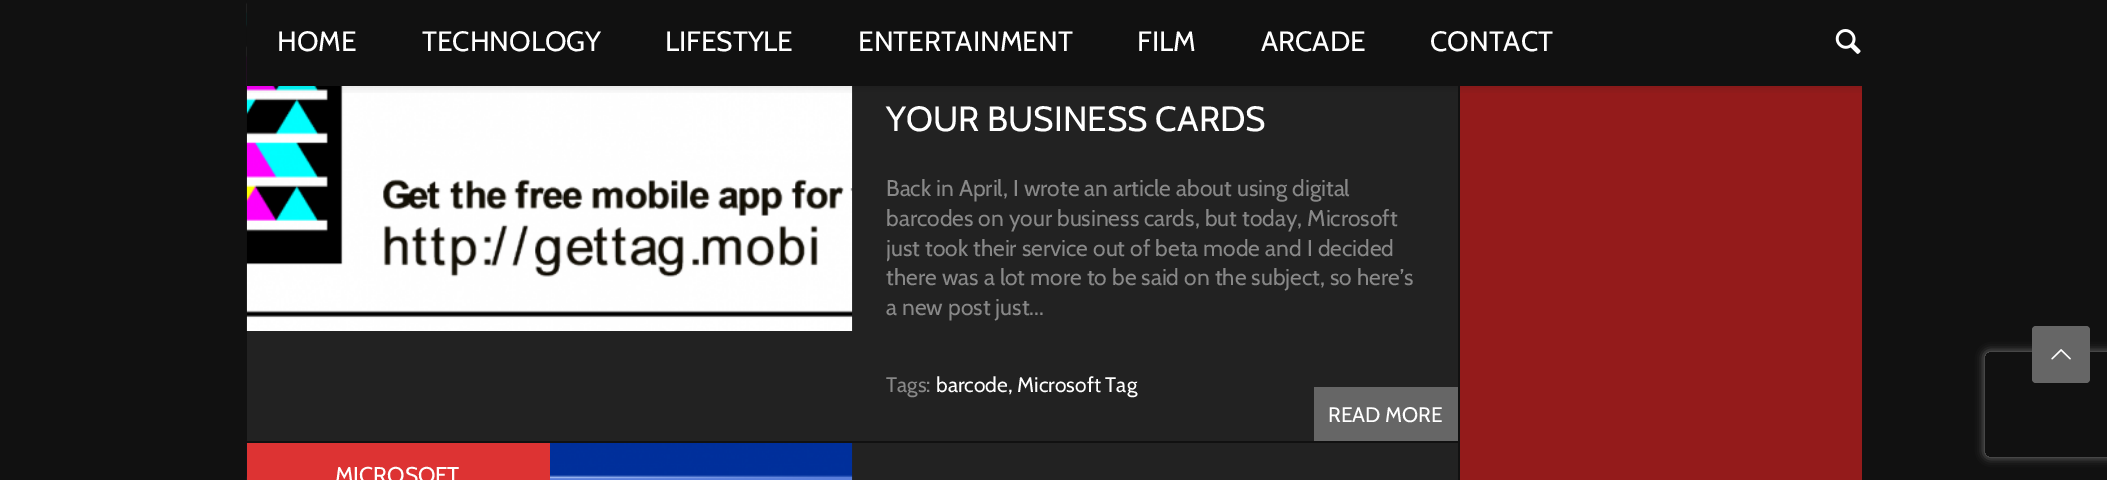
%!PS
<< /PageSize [2107 480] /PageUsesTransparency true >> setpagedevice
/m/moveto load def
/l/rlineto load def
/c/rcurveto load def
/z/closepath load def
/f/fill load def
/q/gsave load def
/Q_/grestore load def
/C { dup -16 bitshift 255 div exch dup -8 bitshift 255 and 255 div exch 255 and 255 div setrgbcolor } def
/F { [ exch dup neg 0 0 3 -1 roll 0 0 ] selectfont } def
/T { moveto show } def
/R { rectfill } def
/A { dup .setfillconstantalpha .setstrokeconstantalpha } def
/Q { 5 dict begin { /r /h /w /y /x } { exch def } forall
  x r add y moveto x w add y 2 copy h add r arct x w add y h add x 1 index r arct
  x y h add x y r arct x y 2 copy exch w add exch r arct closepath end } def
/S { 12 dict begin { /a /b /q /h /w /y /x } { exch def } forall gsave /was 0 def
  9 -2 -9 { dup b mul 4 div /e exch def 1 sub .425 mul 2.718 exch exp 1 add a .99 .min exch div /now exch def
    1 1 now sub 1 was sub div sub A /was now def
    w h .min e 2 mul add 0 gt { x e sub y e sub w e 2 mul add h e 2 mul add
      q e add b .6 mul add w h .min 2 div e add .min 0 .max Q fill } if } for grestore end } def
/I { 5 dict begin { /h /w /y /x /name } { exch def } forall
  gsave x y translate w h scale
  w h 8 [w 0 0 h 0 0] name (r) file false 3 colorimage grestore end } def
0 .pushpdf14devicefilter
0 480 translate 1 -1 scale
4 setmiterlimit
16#111111 C
0 0 2107 480 R
16#222222 C
247 86 1211 355 R
(2.rgb) 246 0 607 331 I
16#941B1B C
1460 86 402 394 R
q
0 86 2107 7 rectclip
16#000000 C
-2 0 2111 89 0 4.5 .1 S
Q_
16#111111 C
247 0 606 86 R
/Cabin-Regular 28 F
16#FFFFFF C
(HOME) 277 51 T
(TECHNOLOGY) 422 51 T
(LIFESTYLE) 665 51 T
(ENTERTAINMENT) 858 51 T
(FILM) 1137 51 T
(ARCADE) 1261 51 T
(CONTACT) 1430 51 T
(1.rgb) 1835 29 26 25 I
/Cabin-Regular 35 F
(YOUR BUSINESS CARDS) 886 131 T
/Cabin-Regular 22.75 F
16#888888 C
(Back in April, I wrote an article about using digital) 886 196 T
(barcodes on your business cards, but today, Microsoft) 886 226 T
q
887 0 571 441 rectclip
(just took their service out of beta mode and I decided) 886 256 T
Q_
(there was a lot more to be said on the subject, so here’s) 886 285 T
(a new post just...) 886 315 T
16#666666 C
1314 387 144 54 R
/Cabin-Regular 21 F
16#FFFFFF C
(READ MORE) 1328 422 T
16#888888 C
(Tags:) 886 392 T
16#FFFFFF C
(barcode, Microsoft Tag) 936 392 T
16#222222 C
852 443 606 37 R
(3.rgb) 246 443 607 37 I
16#DD3333 C
247 443 303 37 R
/Cabin-Regular 22.75 F
16#FFFFFF C
(MICROSOFT) 335 483 T
q
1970 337 m 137 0 l 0 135 l -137 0 l z 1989 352 m 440 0 l 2 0 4 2 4 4 c 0 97 l 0 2 -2 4 -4 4 c -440 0 l -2 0 -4 -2 -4 -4 c 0 -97 l 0 -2 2 -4 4 -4 c z eoclip newpath
16#808080 C
1985 352 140 105 4 4.5 1 S
Q_
16#666666 C
2032 326 58 57 4 Q f
(4.rgb) 2051 349 20 11 I
.poppdf14devicefilter showpage
